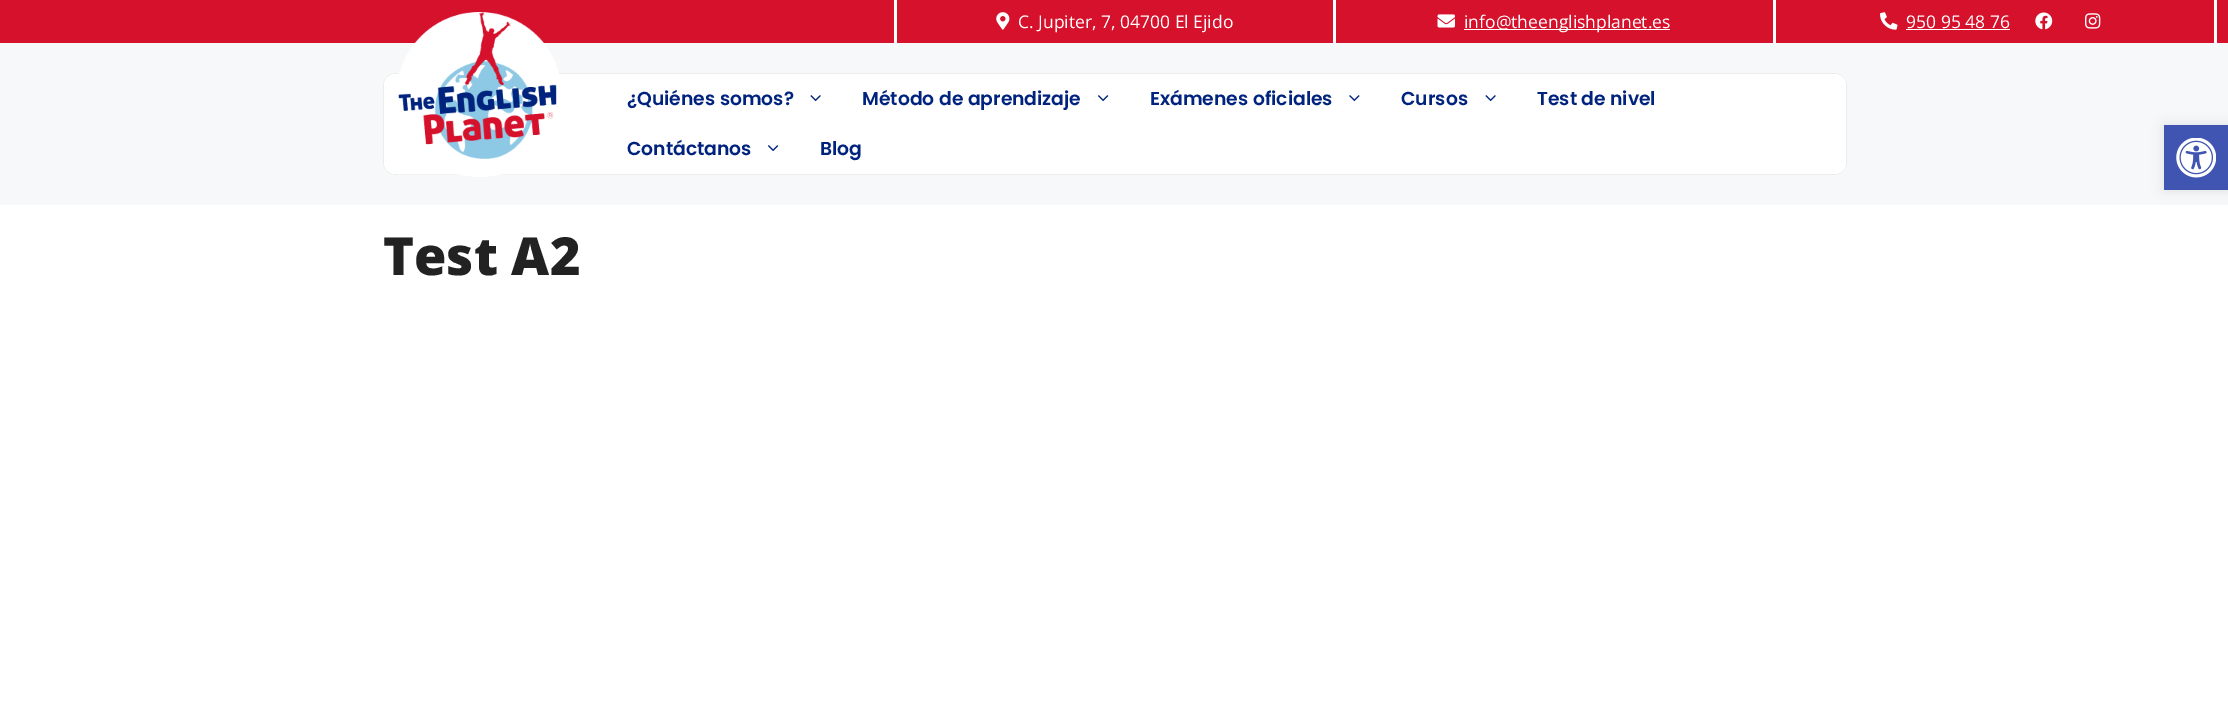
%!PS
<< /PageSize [2228 719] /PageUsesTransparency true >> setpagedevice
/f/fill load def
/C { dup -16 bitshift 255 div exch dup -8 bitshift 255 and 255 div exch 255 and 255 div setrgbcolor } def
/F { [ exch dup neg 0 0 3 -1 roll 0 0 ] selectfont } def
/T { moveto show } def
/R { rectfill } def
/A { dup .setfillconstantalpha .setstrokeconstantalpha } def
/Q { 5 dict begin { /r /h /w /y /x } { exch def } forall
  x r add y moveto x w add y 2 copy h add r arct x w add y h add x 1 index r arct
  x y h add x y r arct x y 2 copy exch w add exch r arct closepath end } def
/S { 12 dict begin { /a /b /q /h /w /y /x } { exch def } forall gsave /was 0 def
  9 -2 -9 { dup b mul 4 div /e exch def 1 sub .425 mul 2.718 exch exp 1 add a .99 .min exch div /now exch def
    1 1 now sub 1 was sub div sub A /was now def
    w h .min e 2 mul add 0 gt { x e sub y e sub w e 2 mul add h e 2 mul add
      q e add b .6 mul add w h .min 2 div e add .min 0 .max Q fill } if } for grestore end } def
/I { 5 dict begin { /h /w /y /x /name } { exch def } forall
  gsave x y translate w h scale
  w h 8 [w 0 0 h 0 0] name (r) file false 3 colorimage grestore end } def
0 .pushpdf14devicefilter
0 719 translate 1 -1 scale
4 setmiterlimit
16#FFFFFF C
0 0 2228 719 R
16#D6112C C
0 0 2228 43 R
16#FFFFFF C
1333 0 3 43 R
894 0 3 43 R
(1.rgb) 996 12 14 18 I
/OpenSans-Regular 17.5 F
(C. Jupiter, 7, 04700 El Ejido) 1018 28 T
1773 0 3 43 R
(2.rgb) 1437 14 18 14 I
1464 29 206 1 R
(info@theenglishplanet.es) 1464 28 T
2214 0 3 43 R
(3.rgb) 1880 12 18 18 I
(950 95 48 76) 1906 28 T
1906 29 104 1 R
(4.rgb) 2035 12 18 18 I
(5.rgb) 2085 13 16 16 I
16#F7F8F9 C
0 43 2228 162 R
16#CCCCCC C
384 74 1462 100 11 .5 1 S
16#FFFFFF C
384 74 1462 100 11 Q f
(6.rgb) 398 12 161 165 I
/Poppins-SemiBold 18.75 F
16#00237D C
(¿Quiénes somos?) 627 105 T
(7.rgb) 810 95 11 7 I
(Método de aprendizaje) 862 105 T
(8.rgb) 1098 95 11 7 I
(Exámenes oficiales) 1150 105 T
(9.rgb) 1349 95 11 7 I
(Cursos) 1401 105 T
(7.rgb) 1485 95 11 7 I
(Test de nivel) 1537 105 T
(Contáctanos) 627 155 T
(8.rgb) 768 145 11 7 I
(Blog) 820 155 T
16#000000 C
2164 125 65 65 0 6 .1 S
16#4054B2 C
2164 125 64 65 R
(10.rgb) 2176 138 40 40 I
/OpenSans-ExtraBold 52.5 F
16#222222 C
(Test A2) 383 275 T
.poppdf14devicefilter showpage
